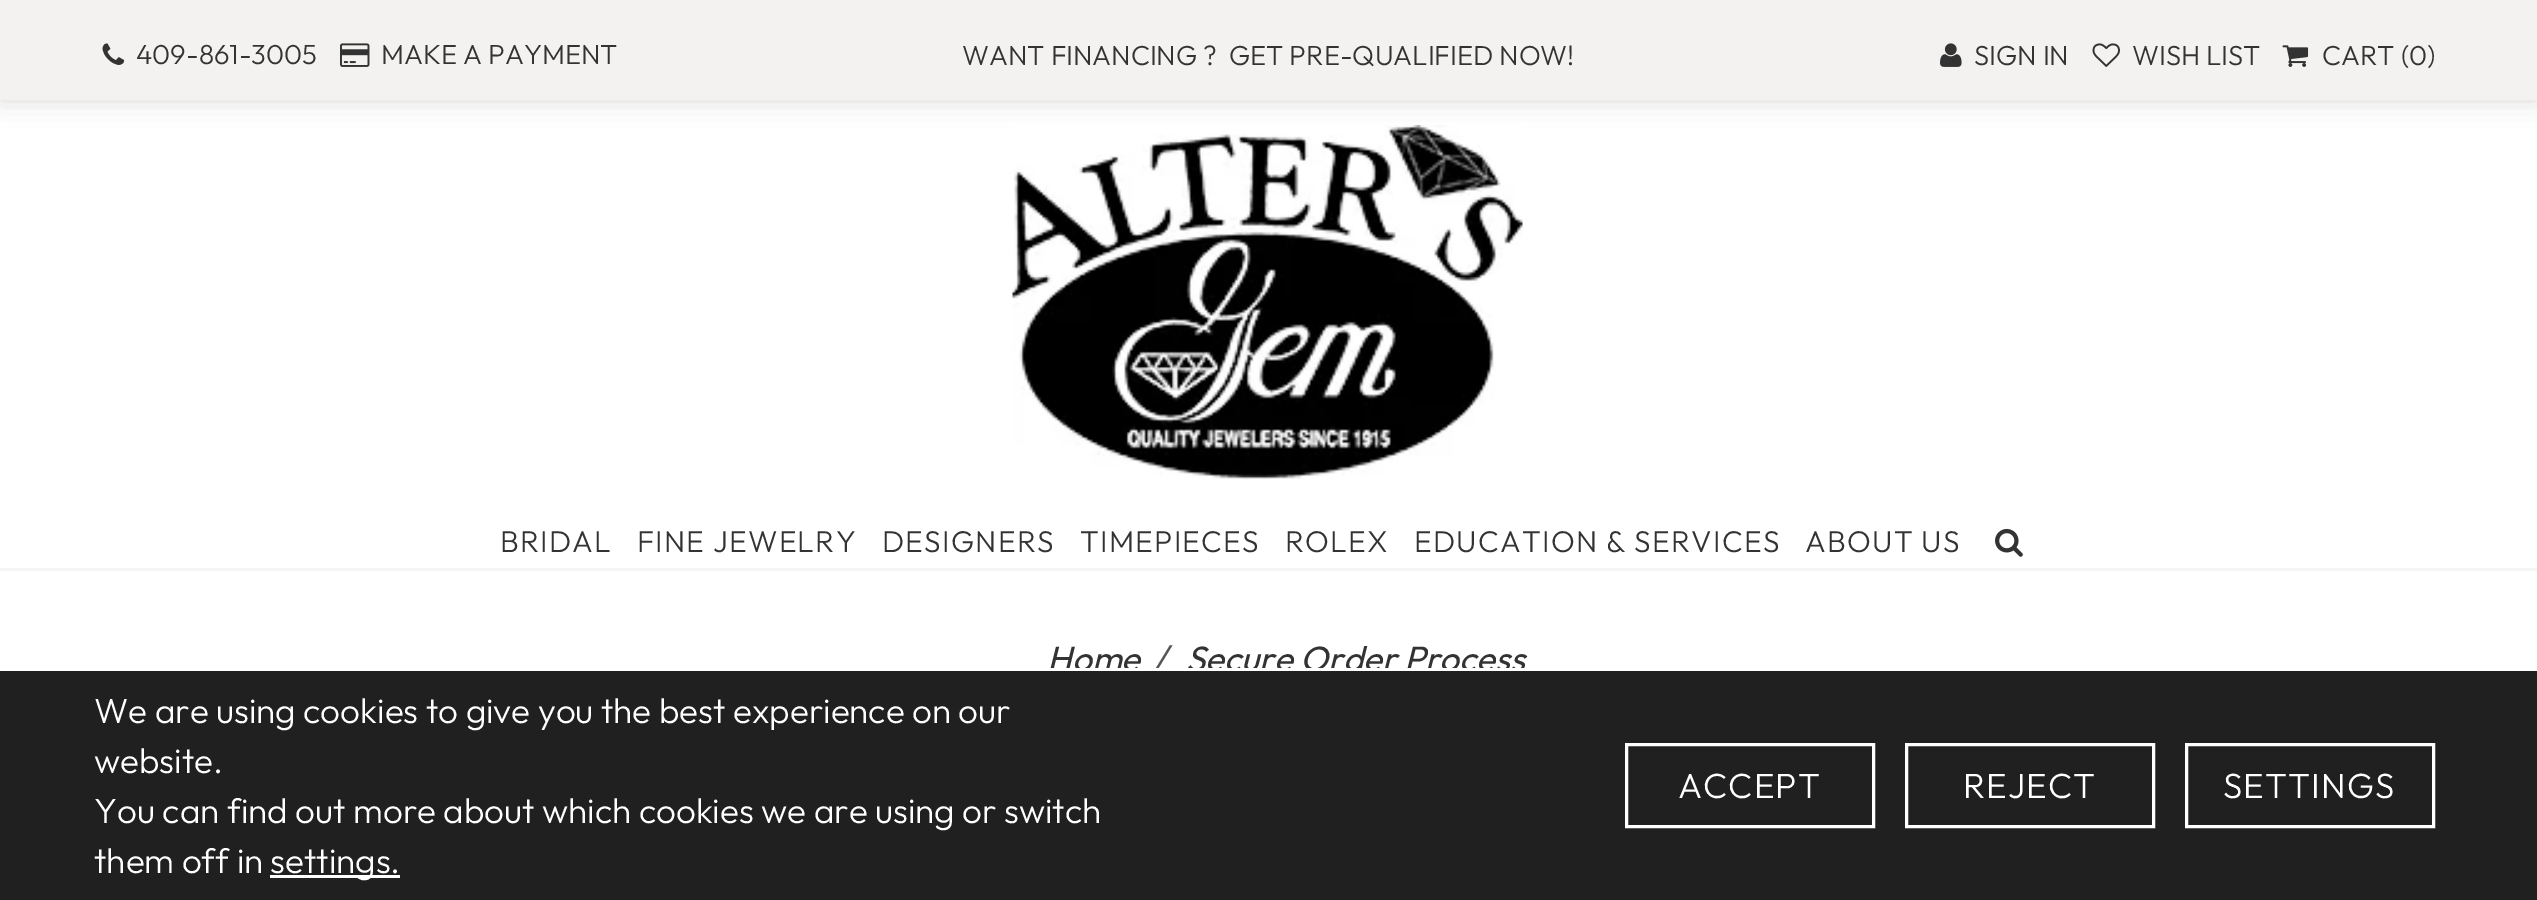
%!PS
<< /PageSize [2537 900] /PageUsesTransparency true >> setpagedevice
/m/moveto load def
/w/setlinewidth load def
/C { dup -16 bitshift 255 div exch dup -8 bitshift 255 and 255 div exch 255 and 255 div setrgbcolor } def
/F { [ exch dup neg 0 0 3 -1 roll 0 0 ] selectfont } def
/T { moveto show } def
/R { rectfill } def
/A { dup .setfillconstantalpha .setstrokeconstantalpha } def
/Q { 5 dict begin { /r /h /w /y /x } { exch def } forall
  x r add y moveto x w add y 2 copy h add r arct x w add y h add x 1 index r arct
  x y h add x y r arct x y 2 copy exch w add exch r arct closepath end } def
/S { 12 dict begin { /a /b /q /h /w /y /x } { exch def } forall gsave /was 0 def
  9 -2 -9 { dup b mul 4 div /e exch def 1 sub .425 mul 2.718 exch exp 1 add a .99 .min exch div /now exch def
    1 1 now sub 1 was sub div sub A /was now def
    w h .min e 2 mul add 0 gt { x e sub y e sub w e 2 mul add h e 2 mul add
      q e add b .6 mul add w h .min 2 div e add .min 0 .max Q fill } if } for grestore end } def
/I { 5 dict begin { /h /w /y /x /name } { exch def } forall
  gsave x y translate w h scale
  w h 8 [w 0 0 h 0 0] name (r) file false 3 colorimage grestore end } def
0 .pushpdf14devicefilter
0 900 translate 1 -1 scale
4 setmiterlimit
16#FFFFFF C
0 0 2537 900 R
16#D5D5D5 C
0 0 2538 100 0 12.5 1 S
16#F3F2F0 C
0 0 2537 100 R
(1.rgb) 102 43 23 22 I
/Outfit-Light 27.5 F
16#333333 C
(409-861-3005) 136 64 T
(2.rgb) 340 43 30 24 I
(MAKE A PAYMENT) 381 64 T
(WANT FINANCING ?  GET PRE-QUALIFIED NOW!) 962 65 T
(3.rgb) 1940 43 22 24 I
(SIGN IN) 1974 65 T
(4.rgb) 2092 43 28 24 I
(WISH LIST) 2132 65 T
(5.rgb) 2282 45 27 22 I
(CART \(0\)) 2322 65 T
(6.rgb) 1012 125 511 355 I
/Outfit-Light 30 F
500 552 m 1.25 0 (BRIDAL) ashow
637 552 m 1.25 0 (FINE JEWELRY) ashow
882 552 m 1.25 0 (DESIGNERS) ashow
1080 552 m 1.25 0 (TIMEPIECES) ashow
1285 552 m 1.25 0 (ROLEX) ashow
1414 552 m 1.25 0 (EDUCATION & SERVICES) ashow
1805 552 m 1.25 0 (ABOUT US) ashow
(7.rgb) 1995 528 28 29 I
16#F5F5F5 C
0 568 2537 3 R
/Outfit-Italic 35 F
16#333333 C
(Home) 1047 671 T
16#555555 C
(/) 1153 671 T
16#333333 C
(Secure Order Process) 1186 671 T
16#202020 C
0 671 2537 229 R
16#FFFFFF C
1050 668 475 3 R
/Outfit-Light 35 F
(We are using cookies to give you the best experience on our) 94 723 T
(website.) 94 773 T
(You can find out more about which cookies we are using or switch) 94 823 T
(them off in) 94 873 T
270 875 130 3 R
(settings.) 270 873 T
3 w
1626.5 744.5 247 82 rectstroke
1678 798 m 1 0 (ACCEPT) ashow
1906.5 744.5 247 82 rectstroke
1963 798 m 1 0 (REJECT) ashow
2186.5 744.5 247 82 rectstroke
2223 798 m 1 0 (SETTINGS) ashow
.poppdf14devicefilter showpage
